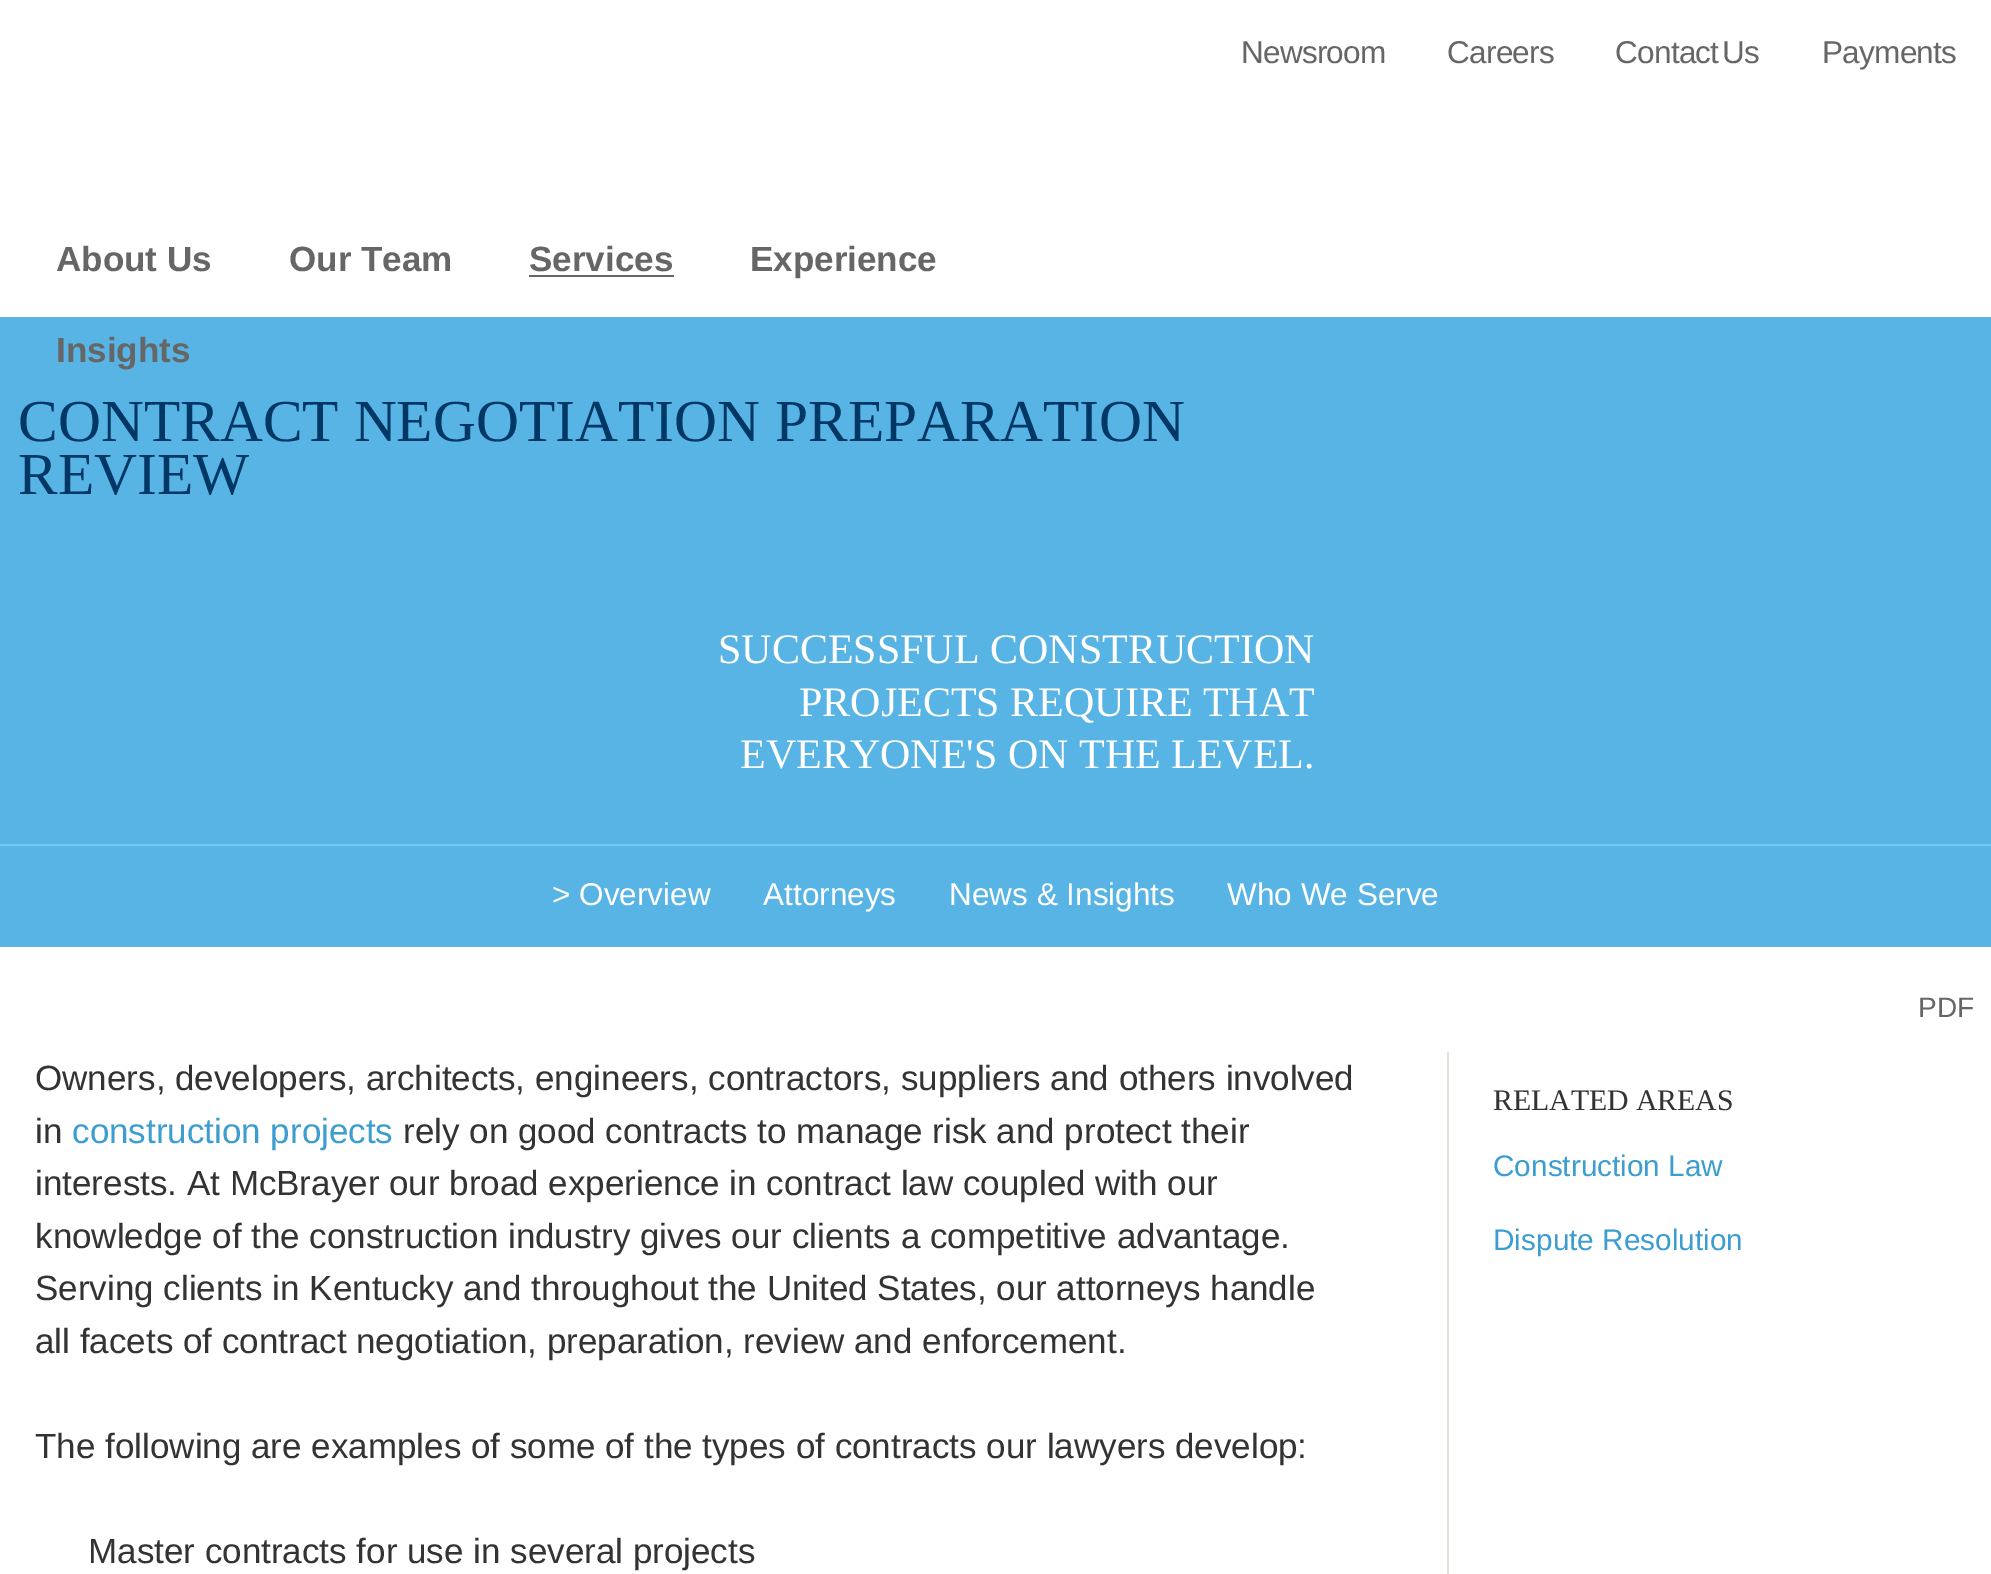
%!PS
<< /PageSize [1991 1574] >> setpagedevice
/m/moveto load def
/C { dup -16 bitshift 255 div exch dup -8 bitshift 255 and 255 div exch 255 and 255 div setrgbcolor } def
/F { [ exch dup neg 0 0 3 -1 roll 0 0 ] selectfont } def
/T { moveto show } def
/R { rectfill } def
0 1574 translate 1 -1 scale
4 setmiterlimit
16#FFFFFF C
0 0 1991 1574 R
/LiberationSans-Regular 31.5 F
16#666666 C
1241 63 m -.75 0 (Newsroom) ashow
1447 63 m -.75 0 (Careers) ashow
1615 63 m -4 0 32 -.75 0 (Contact Us) awidthshow
1822 63 m -.75 0 (Payments) ashow
/LiberationSans-Bold 35 F
(About Us) 56 271 T
(Our Team) 289 271 T
529 275 145 2 R
(Services) 529 271 T
(Experience) 750 271 T
16#58B4E5 C
0 317 1991 527 R
16#666666 C
(Insights) 56 362 T
/LiberationSerif-Regular 59.5 F
16#003764 C
(CONTRACT NEGOTIATION PREPARATION) 18 441 T
(REVIEW) 18 494 T
/LiberationSerif-Regular 42 F
16#FFFFFF C
(SUCCESSFUL CONSTRUCTION) 718 663 T
(PROJECTS REQUIRE THAT) 799 716 T
(EVERYONE'S ON THE LEVEL.) 740 768 T
16#58B4E5 C
0 846 1991 101 R
16#78C8F2 C
0 844 1991 2 R
/LiberationSans-Regular 31.5 F
16#FFFFFF C
(> Overview) 552 905 T
(Attorneys) 763 905 T
(News & Insights) 949 905 T
(Who We Serve) 1227 905 T
16#E7E1DB C
1447 1052 2 522 R
/LiberationSans-Regular 35 F
16#333333 C
(Owners, developers, architects, engineers, contractors, suppliers and others involved) 35 1090 T
(in) 35 1143 T
16#3C9DD0 C
(construction projects) 72 1143 T
16#333333 C
(rely on good contracts to manage risk and protect their) 403 1143 T
(interests. At McBrayer our broad experience in contract law coupled with our) 35 1195 T
(knowledge of the construction industry gives our clients a competitive advantage.) 35 1248 T
(Serving clients in Kentucky and throughout the United States, our attorneys handle) 35 1300 T
(all facets of contract negotiation, preparation, review and enforcement.) 35 1353 T
(The following are examples of some of the types of contracts our lawyers develop:) 35 1458 T
(Master contracts for use in several projects) 88 1563 T
/LiberationSans-Regular 28 F
16#666666 C
(PDF) 1918 1017 T
/LiberationSerif-Regular 29.75 F
16#333333 C
(RELATED AREAS) 1493 1110 T
/LiberationSans-Regular 29.75 F
16#3C9DD0 C
(Construction Law) 1493 1176 T
(Dispute Resolution) 1493 1250 T
showpage
